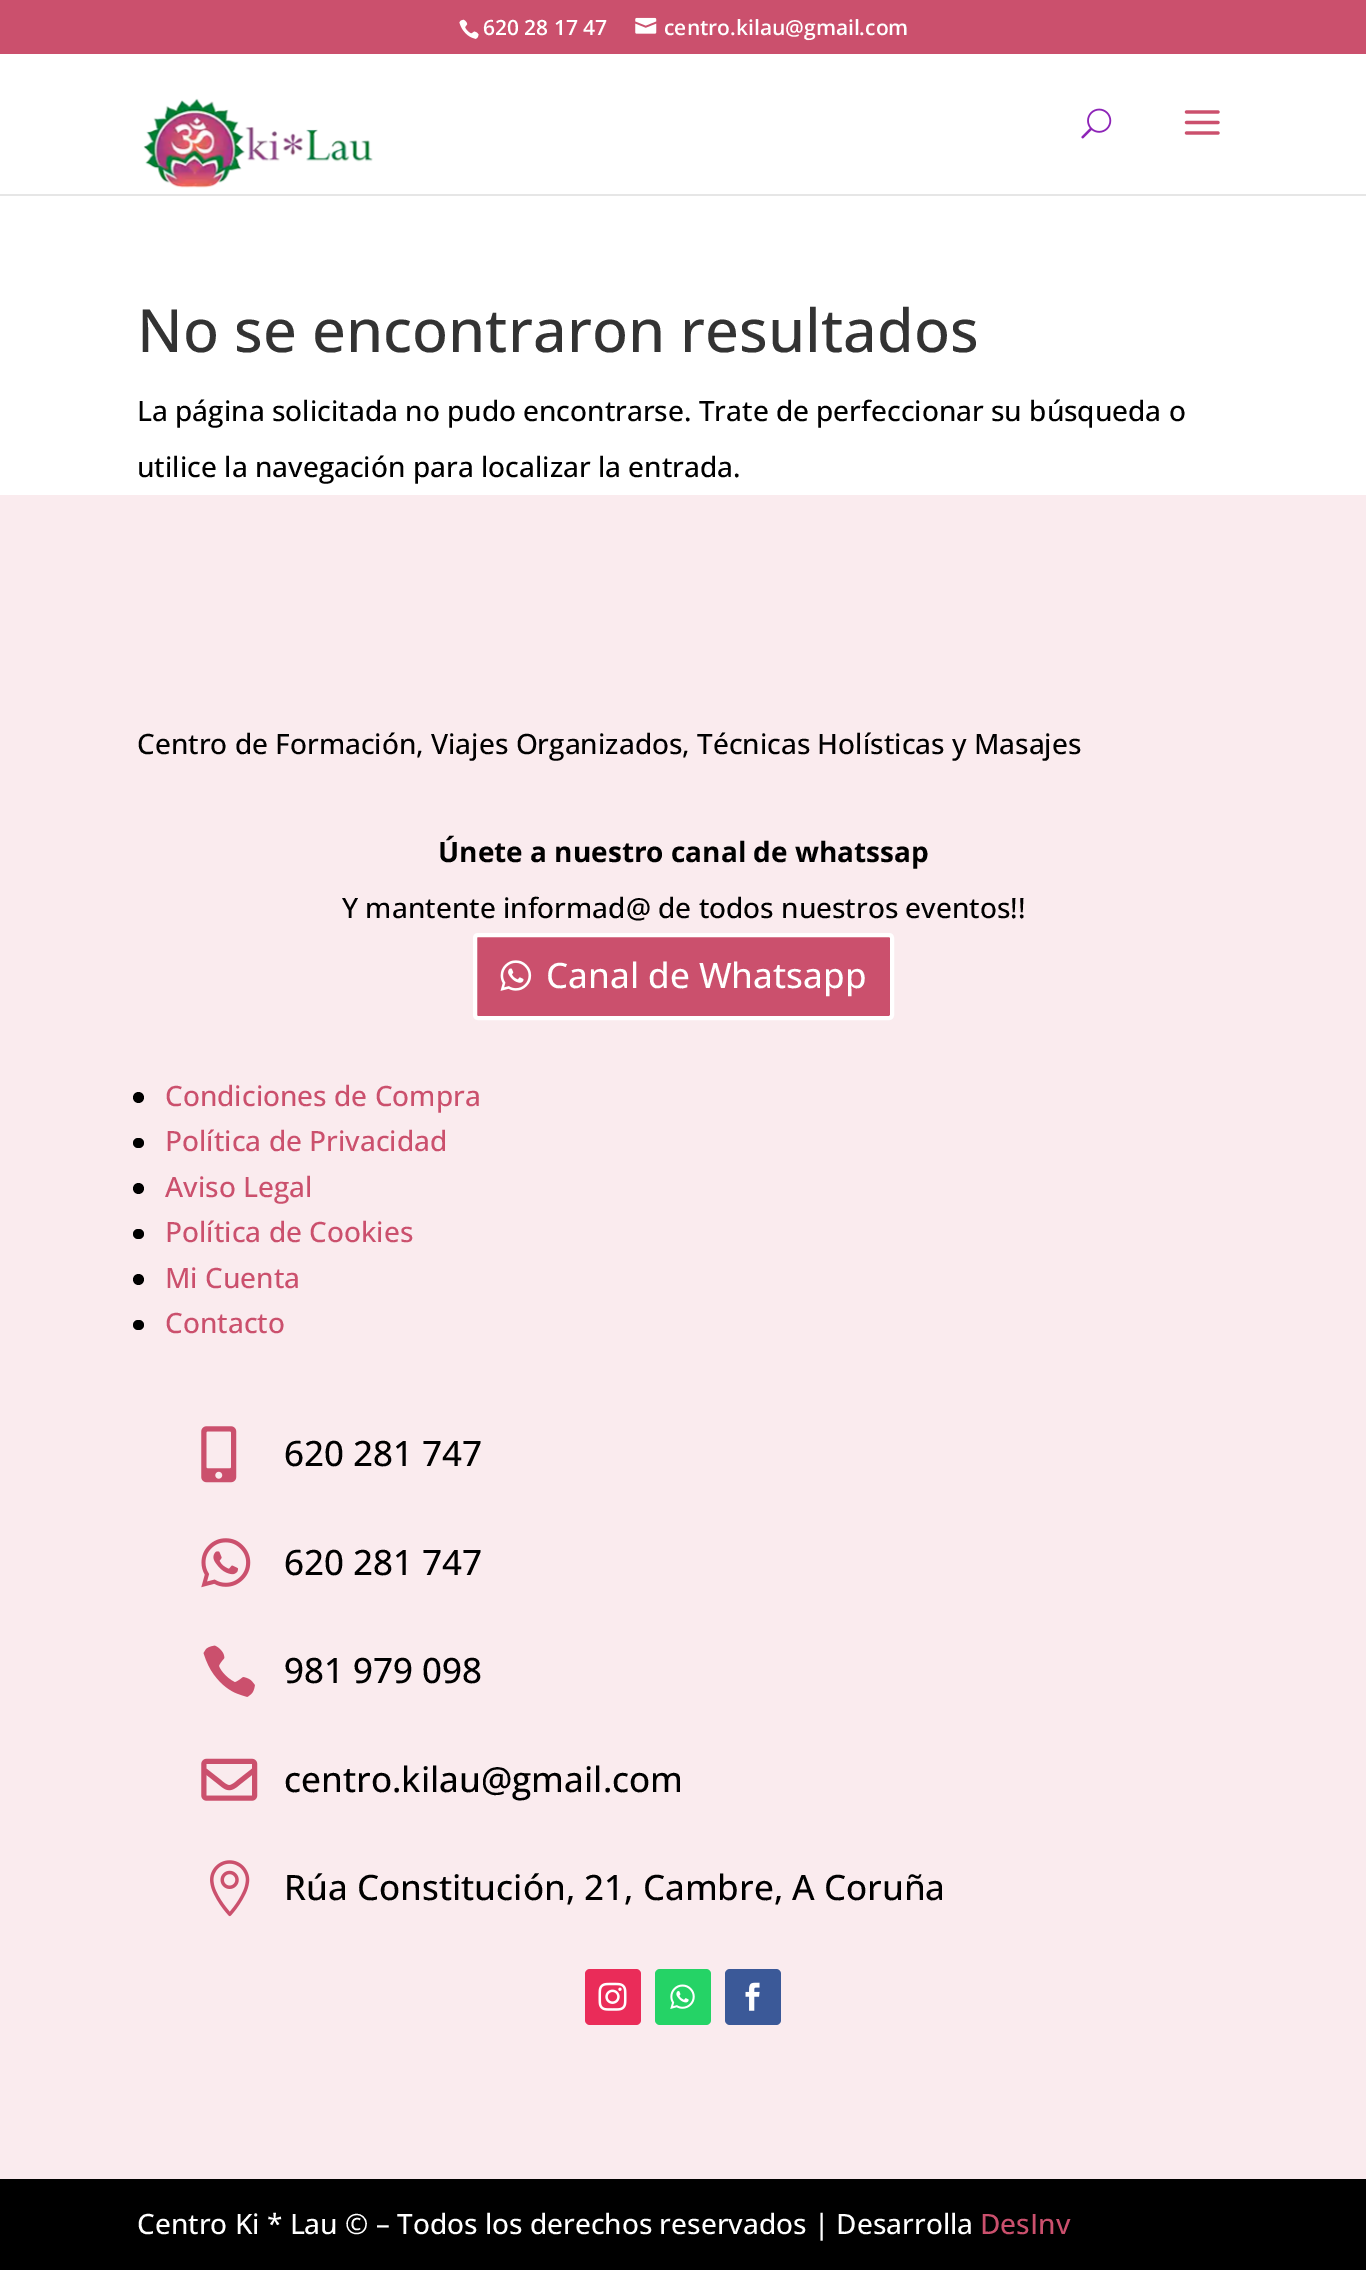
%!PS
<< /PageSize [1366 2274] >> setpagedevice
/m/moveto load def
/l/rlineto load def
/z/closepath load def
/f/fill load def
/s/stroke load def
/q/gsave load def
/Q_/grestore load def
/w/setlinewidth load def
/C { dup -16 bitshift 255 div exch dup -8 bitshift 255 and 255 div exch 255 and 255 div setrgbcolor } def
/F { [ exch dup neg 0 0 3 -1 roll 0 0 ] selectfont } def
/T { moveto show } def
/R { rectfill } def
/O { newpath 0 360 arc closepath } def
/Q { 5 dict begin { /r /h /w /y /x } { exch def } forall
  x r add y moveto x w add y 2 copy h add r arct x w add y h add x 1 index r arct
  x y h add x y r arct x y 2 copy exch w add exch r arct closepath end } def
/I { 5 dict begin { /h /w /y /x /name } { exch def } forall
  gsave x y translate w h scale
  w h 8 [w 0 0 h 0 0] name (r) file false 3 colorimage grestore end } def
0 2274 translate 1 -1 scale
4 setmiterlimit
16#FFFFFF C
0 0 1366 2274 R
16#CB506D C
0 0 1366 54 R
(1.rgb) 459 19 20 20 I
/OpenSans-SemiBold 21 F
16#FFFFFF C
(620 28 17 47) 483 35 T
(2.rgb) 635 17 22 17 I
(centro.kilau@gmail.com) 664 35 T
16#E6E6E6 C
0 194 m 0 2 l 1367 0 l 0 -140 l 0 138 l z f
(3.rgb) 143 98 230 90 I
(4.rgb) 1081 108 31 31 I
(5.rgb) 1184 110 36 25 I
/OpenSans-Medium 59.5 F
16#333333 C
(No se encontraron resultados) 137 352 T
/OpenSans-Medium 28 F
16#000000 C
(La página solicitada no pudo encontrarse. Trate de perfeccionar su búsqueda o) 137 421 T
(utilice la navegación para localizar la entrada.) 137 477 T
16#FAEBEE C
0 495 1366 1684 R
16#000000 C
(Centro de Formación, Viajes Organizados, Técnicas Holísticas y Masajes) 137 754 T
/OpenSans-Bold 28 F
(Únete a nuestro canal de whatssap) 438 862 T
/OpenSans-Medium 28 F
(Y mantente informad@ de todos nuestros eventos!!) 342 918 T
16#CB506D C
475 935 417 83 3 Q q f Q_
16#FFFFFF C
4 w
s
(6.rgb) 500 960 32 31 I
/OpenSans-Medium 35 F
(Canal de Whatsapp) 546 988 T
16#000000 C
138.5 1097.5 5.5 O f
/OpenSans-Medium 28 F
16#CB506D C
(Condiciones de Compra) 165 1106 T
16#000000 C
133 1138 11 10 5 Q f
16#CB506D C
(Política de Privacidad) 165 1151 T
16#000000 C
138.5 1188.5 5.5 O f
16#CB506D C
(Aviso Legal) 165 1197 T
16#000000 C
133 1229 11 10 5 Q f
16#CB506D C
(Política de Cookies) 165 1242 T
16#000000 C
138.5 1279.5 5.5 O f
16#CB506D C
(Mi Cuenta) 165 1288 T
16#000000 C
133 1320 11 10 5 Q f
16#CB506D C
(Contacto) 165 1333 T
(7.rgb) 201 1426 36 57 I
/OpenSans-Medium 35 F
16#000000 C
(620 281 747) 284 1466 T
(8.rgb) 201 1538 50 50 I
(620 281 747) 284 1575 T
(9.rgb) 203 1645 52 52 I
(981 979 098) 284 1683 T
(10.rgb) 201 1758 57 43 I
(centro.kilau@gmail.com) 284 1792 T
(11.rgb) 210 1860 40 57 I
(Rúa Constitución, 21, Cambre, A Coruña) 284 1900 T
16#EA2C59 C
585 1969 56 56 5 Q f
(12.rgb) 598 1982 29 29 I
16#25D366 C
655 1969 56 56 5 Q f
(13.rgb) 670 1984 25 25 I
16#3B5998 C
725 1969 56 56 5 Q f
(14.rgb) 745 1982 15 29 I
16#000000 C
0 2179 1366 91 R
/OpenSans-Medium 28 F
16#FFFFFF C
(Centro Ki * Lau © – Todos los derechos reservados | Desarrolla) 137 2234 T
16#CB506D C
(DesInv) 980 2234 T
showpage
